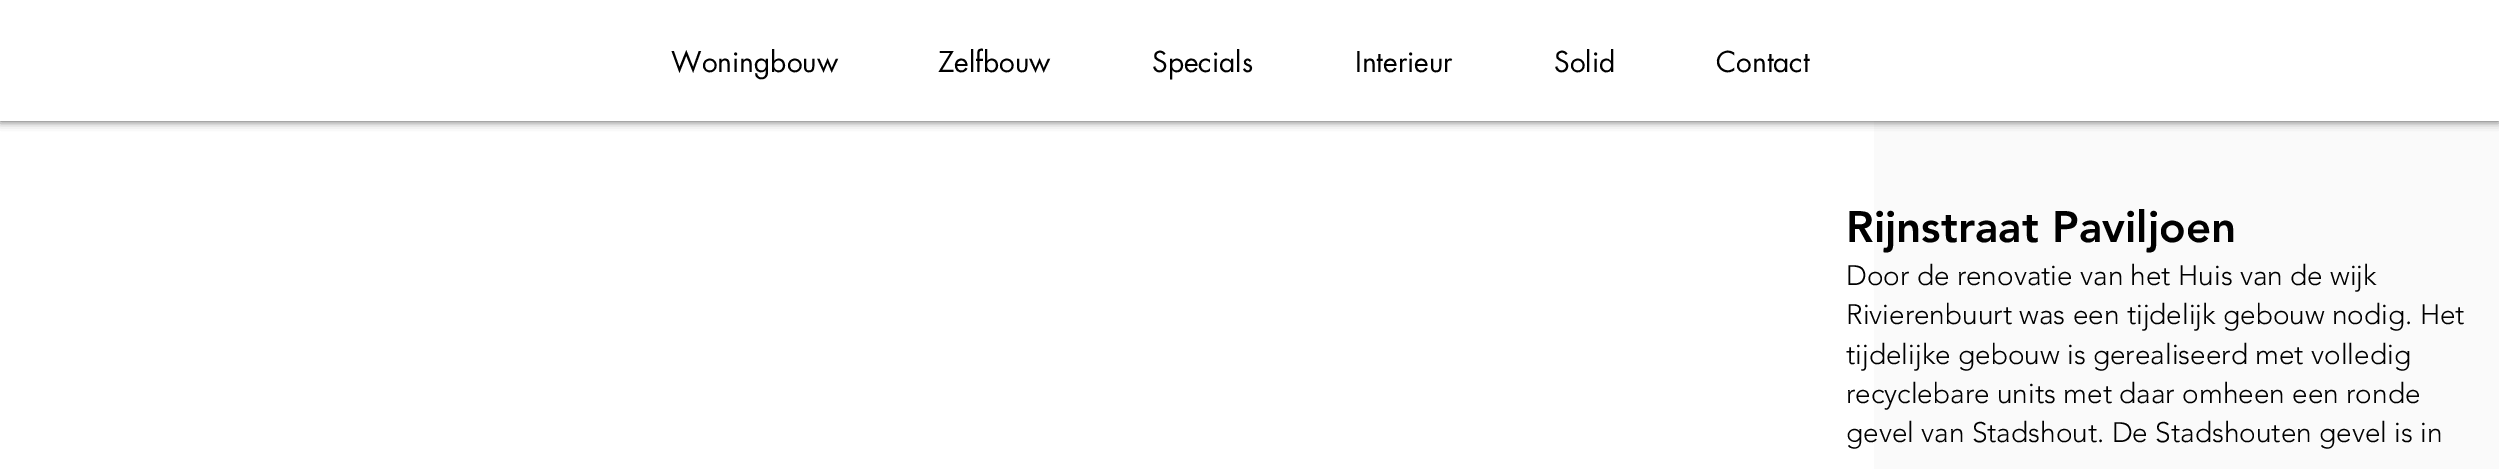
%!PS
<< /PageSize [2499 469] /PageUsesTransparency true >> setpagedevice
/C { dup -16 bitshift 255 div exch dup -8 bitshift 255 and 255 div exch 255 and 255 div setrgbcolor } def
/F { [ exch dup neg 0 0 3 -1 roll 0 0 ] selectfont } def
/T { moveto show } def
/R { rectfill } def
/A { dup .setfillconstantalpha .setstrokeconstantalpha } def
/Q { 5 dict begin { /r /h /w /y /x } { exch def } forall
  x r add y moveto x w add y 2 copy h add r arct x w add y h add x 1 index r arct
  x y h add x y r arct x y 2 copy exch w add exch r arct closepath end } def
/S { 12 dict begin { /a /b /q /h /w /y /x } { exch def } forall gsave /was 0 def
  9 -2 -9 { dup b mul 4 div /e exch def 1 sub .425 mul 2.718 exch exp 1 add a .99 .min exch div /now exch def
    1 1 now sub 1 was sub div sub A /was now def
    w h .min e 2 mul add 0 gt { x e sub y e sub w e 2 mul add h e 2 mul add
      q e add b .6 mul add w h .min 2 div e add .min 0 .max Q fill } if } for grestore end } def
0 .pushpdf14devicefilter
0 469 translate 1 -1 scale
4 setmiterlimit
16#FFFFFF C
0 0 2499 469 R
16#FAFAFA C
1874 121 625 348 R
16#000000 C
0 0 2499 121 0 4.5 .7 S
16#FFFFFF C
0 0 2499 121 R
/futura-Regular 28 F
16#000000 C
(Woningbouw) 671 72 T
(Zelfbouw) 938 72 T
(Specials) 1152 72 T
(Interieur) 1355 72 T
(Solid) 1554 72 T
(Contact) 1716 72 T
/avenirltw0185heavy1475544-Black 43.75 F
(Rijnstraat Paviljoen) 1846 242 T
/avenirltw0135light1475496-Light 28 F
(Door de renovatie van het Huis van de wijk) 1846 285 T
(Rivierenbuurt was een tijdelijk gebouw nodig. Het) 1846 324 T
(tijdelijke gebouw is gerealiseerd met volledig) 1846 364 T
(recyclebare units met daar omheen een ronde) 1846 403 T
(gevel van Stadshout. De Stadshouten gevel is in) 1846 442 T
.poppdf14devicefilter showpage
